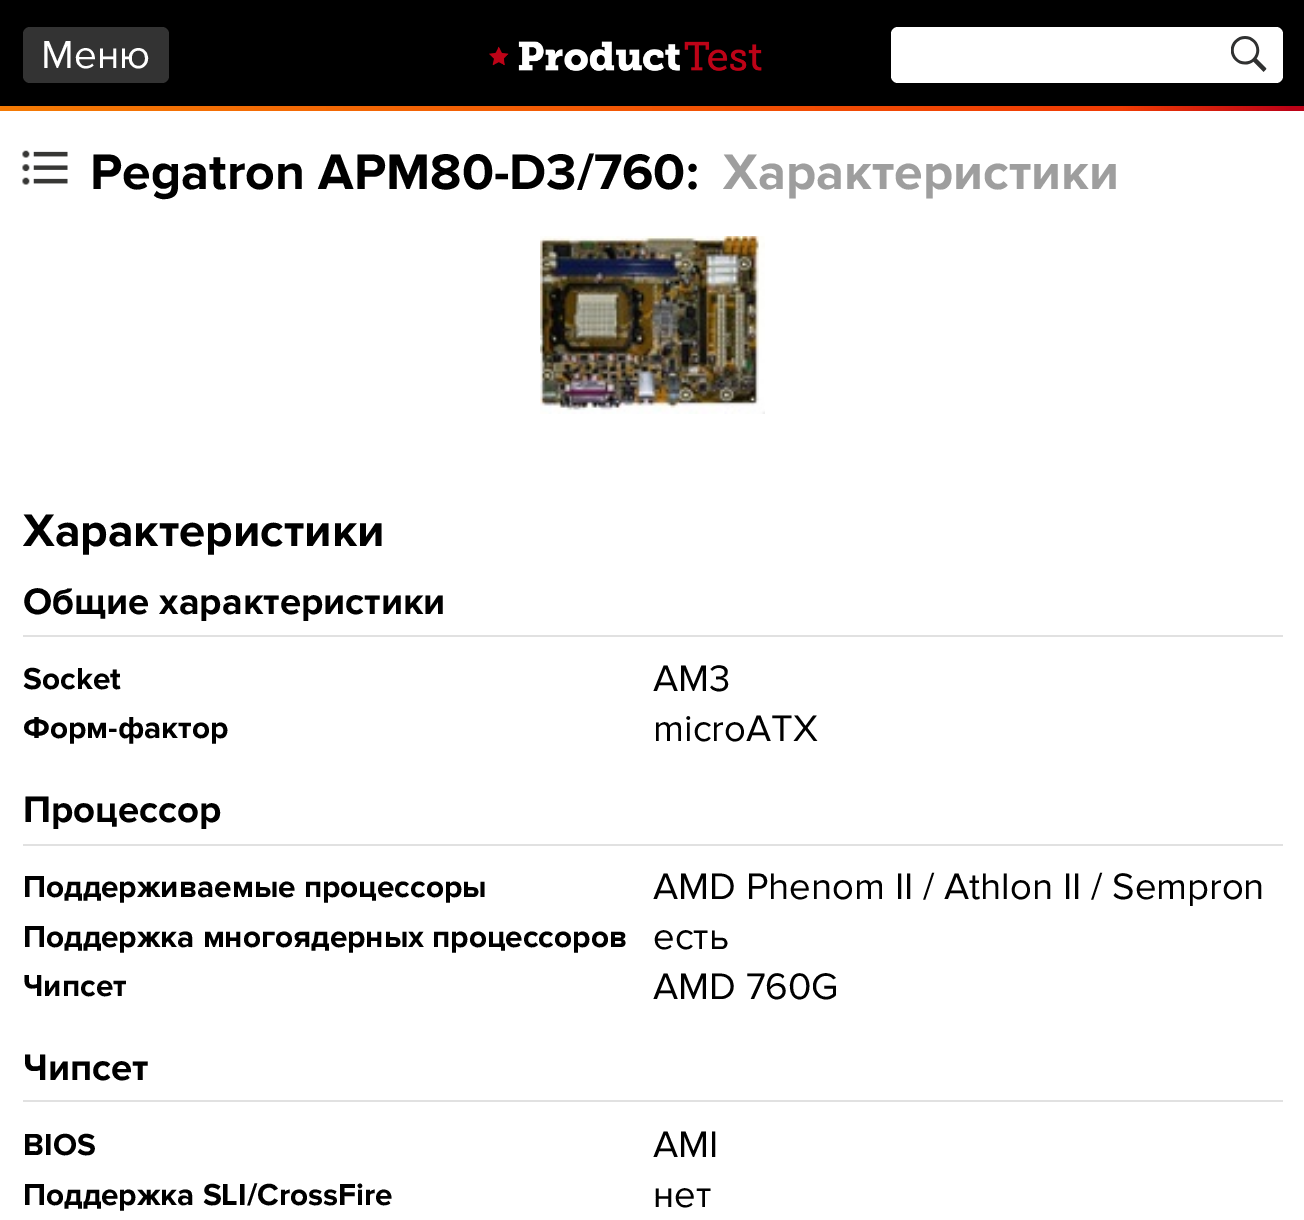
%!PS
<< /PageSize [1304 1220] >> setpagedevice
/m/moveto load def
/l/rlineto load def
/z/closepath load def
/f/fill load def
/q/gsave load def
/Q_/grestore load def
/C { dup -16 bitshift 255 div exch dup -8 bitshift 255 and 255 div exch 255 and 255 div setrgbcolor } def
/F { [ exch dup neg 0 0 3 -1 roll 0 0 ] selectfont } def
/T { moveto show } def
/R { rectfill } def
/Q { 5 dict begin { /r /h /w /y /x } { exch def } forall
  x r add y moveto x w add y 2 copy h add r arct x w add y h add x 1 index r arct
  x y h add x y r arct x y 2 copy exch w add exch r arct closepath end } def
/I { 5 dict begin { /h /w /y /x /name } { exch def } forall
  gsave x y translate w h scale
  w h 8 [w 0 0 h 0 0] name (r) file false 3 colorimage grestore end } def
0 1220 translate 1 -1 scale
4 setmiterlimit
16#FFFFFF C
0 0 1304 1220 R
16#000000 C
0 0 1304 106 R
16#333333 C
23 27 146 56 7 Q f
/ProximaNova-Regular 40.5 F
16#FFFFFF C
(Меню) 41 68 T
(1.rgb) 489 41 273 30 I
891 27 392 56 7 Q f
(2.rgb) 1231 36 36 36 I
q 0 106 m 1304 0 l 0 5 l -1304 0 l z clip newpath
<< /ShadingType 2 /ColorSpace /DeviceRGB /Coords [.2 97 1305 119] /Extend [true true] /Function << /FunctionType 3 /Domain [0 1] /Functions [<< /FunctionType 2 /Domain [0 1] /C0 [.961 .482 .02] /C1 [.945 .235 .016] /N 1 >> << /FunctionType 2 /Domain [0 1] /C0 [.945 .235 .016] /C1 [.741 .008 .09] /N 1 >> << /FunctionType 2 /Domain [0 1] /C0 [.741 .008 .09] /C1 [.741 .008 .09] /N 1 >>] /Bounds [.86 .99] /Encode [0 1 0 1 0 1] >> >> shfill Q_
(3.rgb) 22 150 46 35 I
/ProximaNova-Bold 51.75 F
16#000000 C
(Pegatron APM80-D3/760:) 90 189 T
16#9E9E9E C
(Характеристики) 723 189 T
(4.rgb) 540 236 225 178 I
/ProximaNova-Bold 47.25 F
16#000000 C
(Характеристики) 23 546 T
16#E1E1E1 C
23 635 1260 2 R
/ProximaNova-Bold 38.25 F
16#000000 C
(Общие характеристики) 23 614 T
/ProximaNova-Bold 31.5 F
(Socket) 23 689 T
/ProximaNova-Regular 38.25 F
(AM3) 653 691 T
/ProximaNova-Bold 31.5 F
(Форм-фактор) 23 738 T
/ProximaNova-Regular 38.25 F
(microATX) 653 741 T
16#E1E1E1 C
23 844 1260 2 R
/ProximaNova-Bold 38.25 F
16#000000 C
(Процессор) 23 822 T
/ProximaNova-Bold 31.5 F
(Поддерживаемые процессоры) 23 897 T
/ProximaNova-Regular 38.25 F
(AMD Phenom II / Athlon II / Sempron) 653 899 T
/ProximaNova-Bold 31.5 F
(Поддержка многоядерных процессоров) 23 947 T
/ProximaNova-Regular 38.25 F
(есть) 653 949 T
/ProximaNova-Bold 31.5 F
(Чипсет) 23 996 T
/ProximaNova-Regular 38.25 F
(AMD 760G) 653 999 T
16#E1E1E1 C
23 1100 1260 2 R
/ProximaNova-Bold 38.25 F
16#000000 C
(Чипсет) 23 1080 T
/ProximaNova-Bold 31.5 F
(BIOS) 23 1155 T
/ProximaNova-Regular 38.25 F
(AMI) 653 1157 T
/ProximaNova-Bold 31.5 F
(Поддержка SLI/CrossFire) 23 1205 T
/ProximaNova-Regular 38.25 F
(нет) 653 1207 T
showpage
